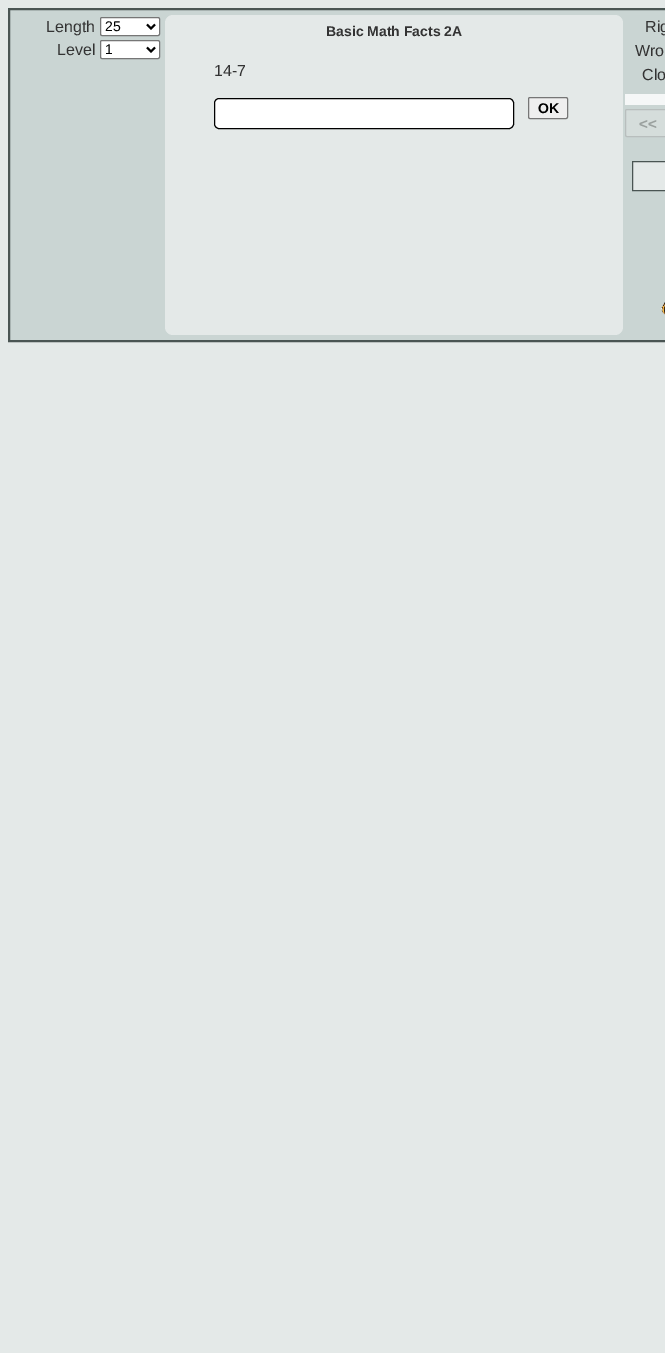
%!PS
<< /PageSize [665 1353] >> setpagedevice
/m/moveto load def
/l/rlineto load def
/z/closepath load def
/f/fill load def
/s/stroke load def
/q/gsave load def
/Q_/grestore load def
/w/setlinewidth load def
/C { dup -16 bitshift 255 div exch dup -8 bitshift 255 and 255 div exch 255 and 255 div setrgbcolor } def
/F { [ exch dup neg 0 0 3 -1 roll 0 0 ] selectfont } def
/T { moveto show } def
/R { rectfill } def
/Q { 5 dict begin { /r /h /w /y /x } { exch def } forall
  x r add y moveto x w add y 2 copy h add r arct x w add y h add x 1 index r arct
  x y h add x y r arct x y 2 copy exch w add exch r arct closepath end } def
/I { 5 dict begin { /h /w /y /x /name } { exch def } forall
  gsave x y translate w h scale
  w h 8 [w 0 0 h 0 0] name (r) file false 3 colorimage grestore end } def
0 1353 translate 1 -1 scale
4 setmiterlimit
16#E4E9E8 C
0 0 665 1353 R
16#CAD5D3 C
9 9 m 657 0 l 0 332 l -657 0 l z q f Q_
16#4A5553 C
2 w
s
/LiberationSans-Regular 16 F
16#333333 C
(Length) 46 32 T
16#FFFFFF C
100.5 17.5 59 18 1.5 Q q f Q_
16#767676 C
1 w
s
16#000000 C
2 w
147 24.5 m 4 4 l 4 -4 l s
/LiberationSans-Regular 14 F
(25) 105 31 T
/LiberationSans-Regular 16 F
16#333333 C
(Level) 57 55 T
16#FFFFFF C
100.5 40.5 59 18 1.5 Q q f Q_
16#767676 C
1 w
s
16#000000 C
2 w
147 47.5 m 4 4 l 4 -4 l s
/LiberationSans-Regular 14 F
(1) 105 54 T
16#E4E9E8 C
165 15 458 320 8 Q f
/LiberationSans-Bold 14 F
16#333333 C
(Basic Math Facts 2A) 326 36 T
/LiberationSans-Regular 16 F
(14-7) 214 76 T
16#FFFFFF C
214.5 98.5 299 30 4.5 Q q f Q_
16#000000 C
1 w
s
16#EFEFEF C
528.5 97.5 39 21 1.5 Q q f Q_
16#767676 C
s
/LiberationSans-Bold 14 F
16#000000 C
(OK) 538 113 T
/LiberationSans-Regular 16 F
16#333333 C
(Rig) 645 32 T
(Wro) 635 56 T
(Clo) 642 80 T
16#F5F7F7 C
625 94 40 11 R
16#D5DDDB C
625.5 109.5 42 27 1.5 Q q f Q_
16#B8BEBD C
s
/LiberationSans-Bold 15 F
16#9AA09E C
(<<) 639 129 T
16#E4E9E8 C
632.5 161.5 m 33 0 l 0 29 l -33 0 l z q f Q_
16#4A5553 C
s
(1.rgb) 661 302 4 13 I
showpage
